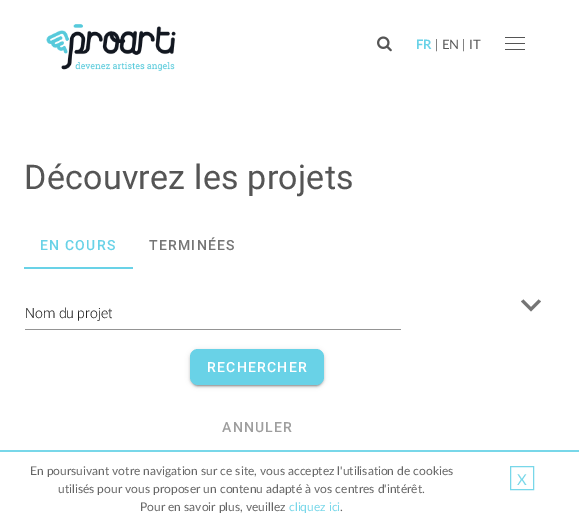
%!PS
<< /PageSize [579 526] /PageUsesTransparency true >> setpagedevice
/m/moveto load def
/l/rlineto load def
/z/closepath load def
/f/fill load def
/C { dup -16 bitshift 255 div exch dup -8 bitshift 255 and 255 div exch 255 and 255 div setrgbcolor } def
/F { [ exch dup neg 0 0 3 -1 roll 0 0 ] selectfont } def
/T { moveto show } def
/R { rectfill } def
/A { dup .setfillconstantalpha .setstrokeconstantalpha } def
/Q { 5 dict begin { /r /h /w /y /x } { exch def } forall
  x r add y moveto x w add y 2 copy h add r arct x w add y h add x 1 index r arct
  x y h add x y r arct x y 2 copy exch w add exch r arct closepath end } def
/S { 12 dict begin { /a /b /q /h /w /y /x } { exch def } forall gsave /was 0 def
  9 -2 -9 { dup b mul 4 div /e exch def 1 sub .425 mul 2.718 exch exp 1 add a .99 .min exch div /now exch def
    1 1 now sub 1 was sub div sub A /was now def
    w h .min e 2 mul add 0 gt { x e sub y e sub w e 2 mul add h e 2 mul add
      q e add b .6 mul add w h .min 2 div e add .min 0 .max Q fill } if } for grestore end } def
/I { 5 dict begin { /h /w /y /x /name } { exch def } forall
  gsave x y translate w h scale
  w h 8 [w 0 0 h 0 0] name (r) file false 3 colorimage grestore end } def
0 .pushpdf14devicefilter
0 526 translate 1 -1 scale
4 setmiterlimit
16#FFFFFF C
0 0 579 526 R
(1.rgb) 46 24 130 47 I
(2.rgb) 377 36 15 16 I
/Lato-Bold 13 F
16#69D2E7 C
(FR) 416 49 T
/Lato-Regular 13 F
16#555555 C
(| EN | IT) 435 49 T
505 37 20 1 R
505 43 20 1 R
505 49 20 1 R
/Roboto-Regular 34 F
24 189 m .25 0 (Découvrez les projets) ashow
/Roboto-Medium 14 F
16#69D2E7 C
40 250 m 1.25 0 (EN COURS) ashow
16#757575 C
149 250 m 1.25 0 (TERMINÉES) ashow
16#69D2E7 C
24 267 109 2 R
16#757575 C
523.5 299.5 m 7.5 7.5 l 7.5 -7.5 l 2.5 2 l -10 10 l -10 -10 l z f
/Roboto-Light 14 F
16#252525 C
(Nom du projet) 25 318 T
16#949494 C
25 329 376 1 R
16#000000 C
190 350 134 36 8 2.5 .12 S
190 351 134 36 8 1 .14 S
192 354 130 32 6 .5 .2 S
16#69D2E7 C
190 349 134 36 8 Q f
/Roboto-Medium 14 F
16#FFFFFF C
207 372 m 1.25 0 (RECHERCHER) ashow
16#9E9E9E C
222 432 m 1.25 0 (ANNULER) ashow
16#78D7E9 C
0 450 579 2 R
/Lato-Regular 12 F
16#666666 C
(En poursuivant votre navigation sur ce site, vous acceptez l'utilisation de cookies) 30 475 T
(utilisés pour vous proposer un contenu adapté à vos centres d'intérêt.) 58 493 T
(Pour en savoir plus, veuillez) 140 511 T
16#78D7E9 C
(cliquez ici) 289 511 T
16#666666 C
(.) 340 511 T
16#78D7E9 C
510.5 466.5 23 23 rectstroke
/Lato-Regular 15 F
(X) 517 485 T
.poppdf14devicefilter showpage
